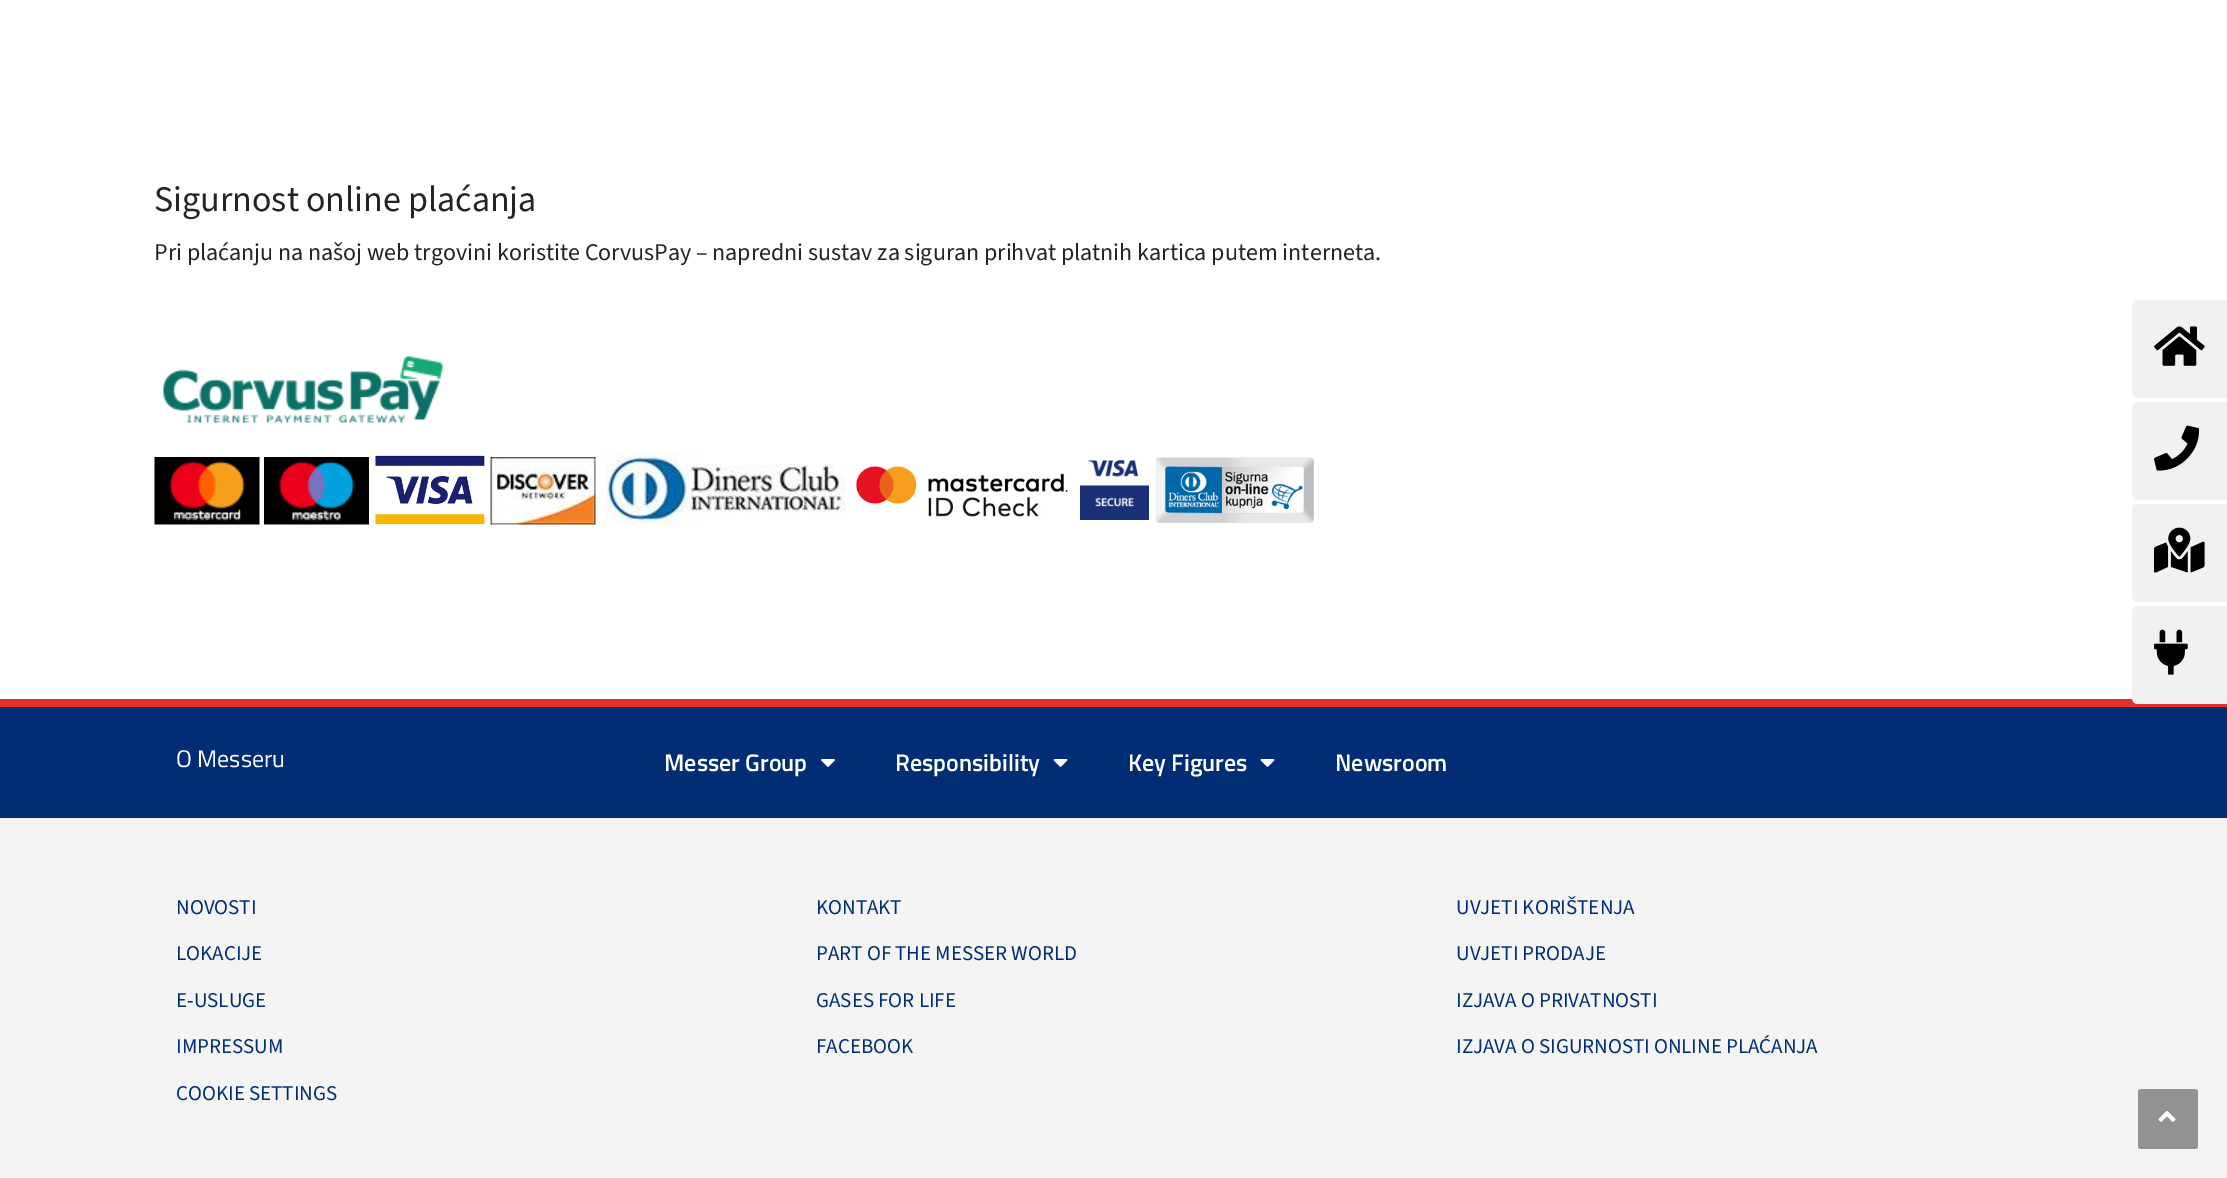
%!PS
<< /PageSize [2227 1178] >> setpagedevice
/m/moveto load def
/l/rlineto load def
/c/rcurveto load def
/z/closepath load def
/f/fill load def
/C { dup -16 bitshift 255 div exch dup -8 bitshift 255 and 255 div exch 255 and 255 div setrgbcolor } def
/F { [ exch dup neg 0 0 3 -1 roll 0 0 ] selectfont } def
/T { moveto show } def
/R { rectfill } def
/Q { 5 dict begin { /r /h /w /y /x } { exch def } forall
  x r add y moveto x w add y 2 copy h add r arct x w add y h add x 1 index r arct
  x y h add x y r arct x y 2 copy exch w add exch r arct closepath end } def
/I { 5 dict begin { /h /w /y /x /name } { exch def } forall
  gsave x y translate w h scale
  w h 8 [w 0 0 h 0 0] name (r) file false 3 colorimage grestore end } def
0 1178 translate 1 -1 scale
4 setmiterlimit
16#FFFFFF C
0 0 2227 1178 R
/SourceSans3-Regular 36 F
16#212529 C
(Sigurnost online plaćanja) 154 211 T
/SourceSans3-Regular 24 F
(Pri plaćanju na našoj web trgovini koristite CorvusPay – napredni sustav za siguran prihvat platnih kartica putem interneta.) 154 260 T
(1.rgb) 163 356 280 67 I
(2.rgb) 154 457 106 68 I
(3.rgb) 264 457 105 68 I
(4.rgb) 375 455 110 70 I
(5.rgb) 490 457 106 68 I
(6.rgb) 606 452 240 74 I
(7.rgb) 855 466 213 51 I
(8.rgb) 1080 460 69 60 I
(9.rgb) 1155 457 159 66 I
16#F1F1F1 C
2138 300 m 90 0 l 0 98 l -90 0 l -3.5 0 -6 -2.5 -6 -6 c 0 -86 l 0 -3.5 2.5 -6 6 -6 c z f
(10.rgb) 2154 326 51 40 I
2138 402 m 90 0 l 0 98 l -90 0 l -3.5 0 -6 -2.5 -6 -6 c 0 -86 l 0 -3.5 2.5 -6 6 -6 c z f
(11.rgb) 2154 425 46 46 I
2138 504 m 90 0 l 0 98 l -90 0 l -3.5 0 -6 -2.5 -6 -6 c 0 -86 l 0 -3.5 2.5 -6 6 -6 c z f
(12.rgb) 2154 527 51 46 I
16#E3312A C
0 699 2227 8 R
16#F1F1F1 C
2138 606 m 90 0 l 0 98 l -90 0 l -3.5 0 -6 -2.5 -6 -6 c 0 -86 l 0 -3.5 2.5 -6 6 -6 c z f
(13.rgb) 2154 629 34 46 I
16#002D73 C
0 707 2227 111 R
/TitilliumWeb-Regular 24 F
16#FFFFFF C
(O Messeru) 176 767 T
/TitilliumWeb-SemiBold 24 F
(Messer Group) 664 771 T
(14.rgb) 821 759 14 8 I
(Responsibility) 895 771 T
(15.rgb) 1053 759 15 8 I
(Key Figures) 1128 771 T
(15.rgb) 1260 759 15 8 I
(Newsroom) 1335 771 T
16#F4F4F4 C
0 818 2227 360 R
/SourceSans3-Regular 21 F
16#002D73 C
(NOVOSTI) 176 914 T
(LOKACIJE) 176 960 T
(E-USLUGE) 176 1007 T
(IMPRESSUM) 176 1053 T
(COOKIE SETTINGS) 176 1100 T
(KONTAKT) 816 914 T
(PART OF THE MESSER WORLD) 816 960 T
(GASES FOR LIFE) 816 1007 T
(FACEBOOK) 816 1053 T
(UVJETI KORIŠTENJA) 1456 914 T
(UVJETI PRODAJE) 1456 960 T
(IZJAVA O PRIVATNOSTI) 1456 1007 T
(IZJAVA O SIGURNOSTI ONLINE PLAĆANJA) 1456 1053 T
16#929292 C
2138 1089 60 60 3 Q f
(16.rgb) 2158 1111 18 11 I
showpage
